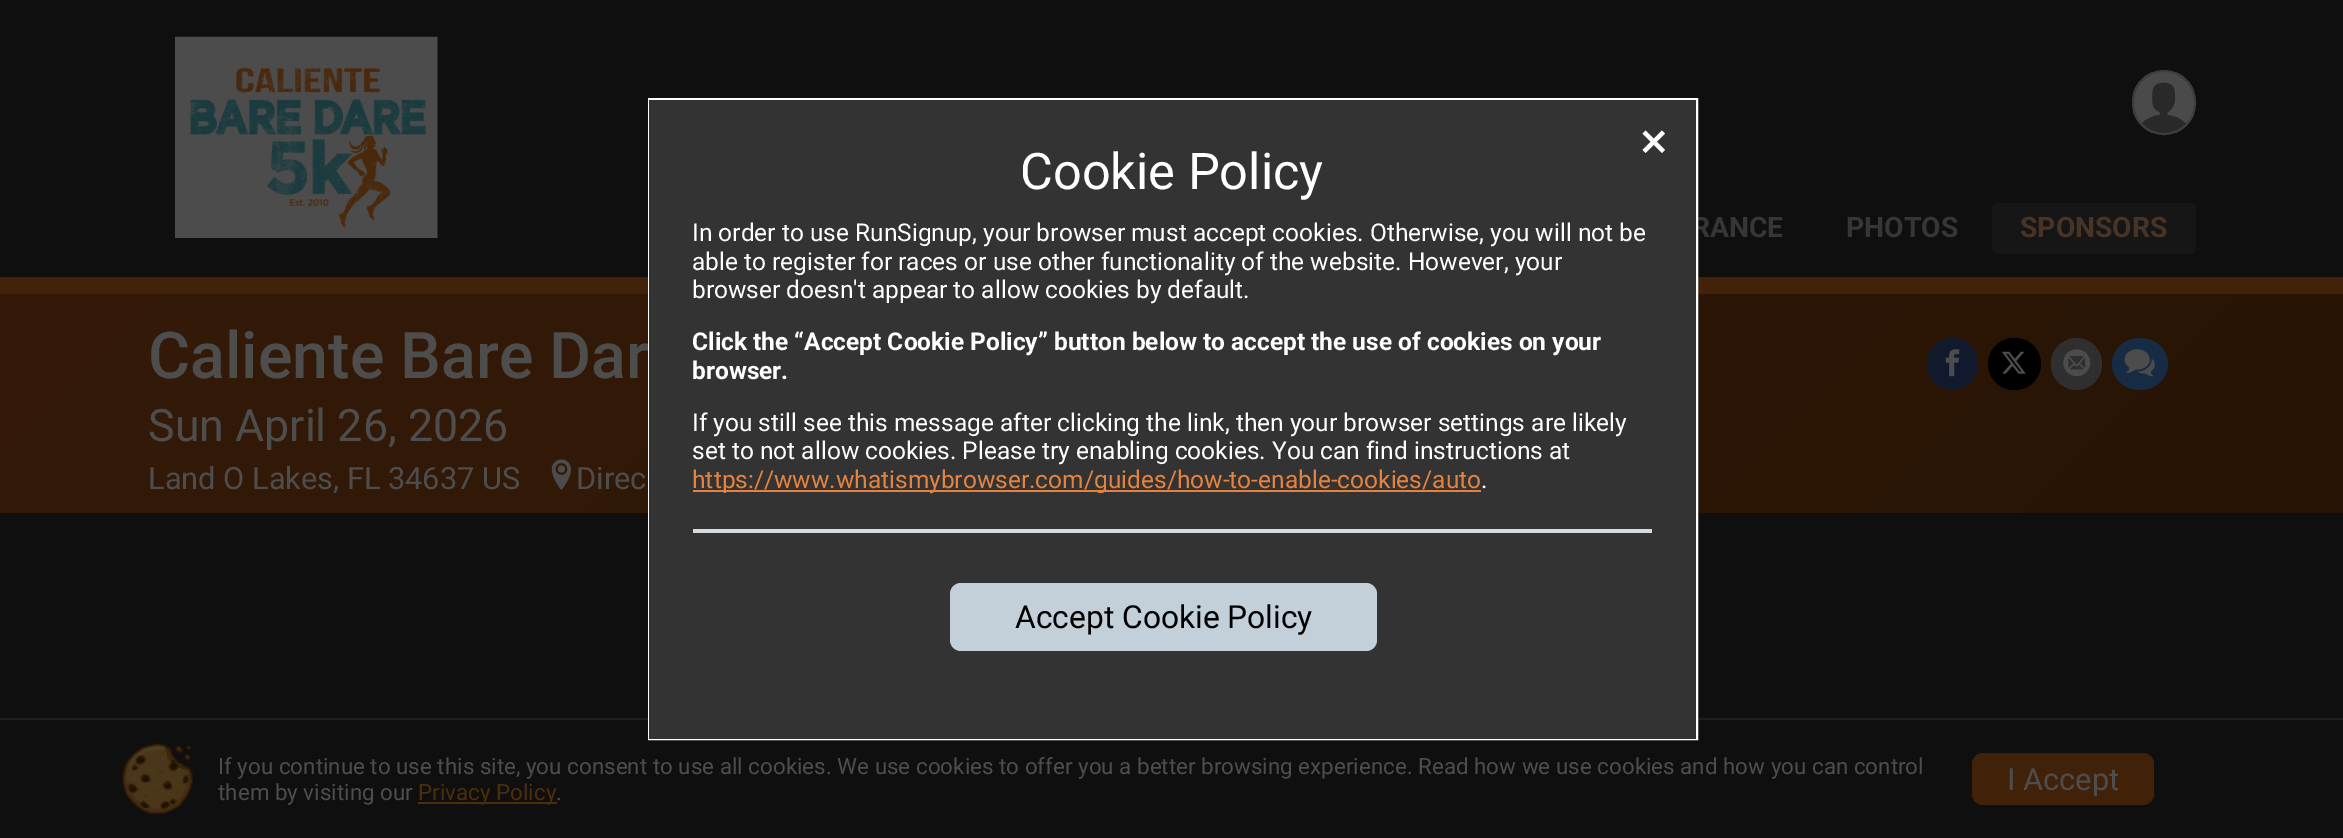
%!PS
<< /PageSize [2343 838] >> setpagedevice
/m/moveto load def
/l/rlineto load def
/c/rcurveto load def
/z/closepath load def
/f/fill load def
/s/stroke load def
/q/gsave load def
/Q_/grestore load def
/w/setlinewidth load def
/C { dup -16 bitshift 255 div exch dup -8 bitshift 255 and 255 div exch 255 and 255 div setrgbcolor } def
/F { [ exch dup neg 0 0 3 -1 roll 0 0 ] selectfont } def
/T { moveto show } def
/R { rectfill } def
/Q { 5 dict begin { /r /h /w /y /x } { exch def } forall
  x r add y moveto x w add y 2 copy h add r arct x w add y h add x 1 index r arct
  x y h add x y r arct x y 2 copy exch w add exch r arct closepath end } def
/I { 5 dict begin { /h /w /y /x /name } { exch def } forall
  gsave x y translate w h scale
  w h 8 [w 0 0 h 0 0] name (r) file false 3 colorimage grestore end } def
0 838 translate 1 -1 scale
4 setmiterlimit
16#0F0F0F C
0 0 2343 838 R
/Roboto-Bold 28.25 F
16#363636 C
(RANCE) 1692 237 T
q 0 294 m 2343 0 l 0 219 l -2343 0 l z clip newpath
<< /ShadingType 2 /ColorSpace /DeviceRGB /Coords [1812 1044 531 -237] /Extend [true true] /Function << /FunctionType 2 /Domain [0 1] /C0 [.153 .078 .02] /C1 [.208 .102 .031] /N 1 >> >> shfill Q_
16#43220B C
0 277 2343 17 R
16#1F1F1F C
0 718 2343 2 R
16#FFFFFF C
2 w
649 99 1048 640 rectstroke
16#333333 C
649 100 1047 639 R
(1.rgb) 1642 130 23 23 I
/Roboto-Regular 50.5 F
16#FFFFFF C
(Cookie Policy) 1020 189 T
/Roboto-Regular 24.5 F
(In order to use RunSignup, your browser must accept cookies. Otherwise, you will not be) 692 241 T
(able to register for races or use other functionality of the website. However, your) 692 270 T
(browser doesn't appear to allow cookies by default.) 692 298 T
/Roboto-Bold 24.5 F
(Click the “Accept Cookie Policy” button below to accept the use of cookies on your) 692 350 T
(browser.) 692 379 T
/Roboto-Regular 24.5 F
(If you still see this message after clicking the link, then your browser settings are likely) 692 431 T
(set to not allow cookies. Please try enabling cookies. You can find instructions at) 692 459 T
16#E4833F C
693 490 788 2 R
(https://www.whatismybrowser.com/guides/how-to-enable-cookies/auto) 692 488 T
16#FFFFFF C
(.) 1481 488 T
16#D3DBDF C
693 529 959 4 R
16#C3D0DA C
950 583 427 68 11 Q f
/Roboto-Regular 31.75 F
16#000000 C
(Accept Cookie Policy) 1015 628 T
(2.rgb) 175 36 263 202 I
(3.rgb) 2133 72 61 61 I
16#3D3D3D C
2133 71 62 63 31 Q s
/Roboto-Bold 28.25 F
16#363636 C
(PHOTOS) 1846 237 T
16#161616 C
1992 203 204 51 5 Q f
16#473426 C
(SPONSORS) 2020 237 T
/Roboto-Medium 64.5 F
16#4D4D4D C
(Caliente Bare Dar) 148 378 T
/Roboto-Regular 44.75 F
(Sun April 26, 2026) 148 441 T
/Roboto-Regular 30.75 F
(Land O Lakes, FL 34637 US) 148 489 T
(4.rgb) 551 459 20 32 I
(Direc) 576 489 T
16#11192D C
1927 338 51 52 25.5 Q f
(5.rgb) 1945 349 15 28 I
16#000000 C
1988 338 53 52 26 Q f
(6.rgb) 2001 351 25 23 I
16#2F2F2F C
2051 338 51 52 25.5 Q f
(7.rgb) 2063 349 28 28 I
16#172C44 C
2140 338 m 15.5 0 28 11.5 28 26 c 0 14.5 -12.5 26 -28 26 c -15.5 0 -28 -11.5 -28 -26 c 0 -14.5 12.5 -26 28 -26 c z f
(8.rgb) 2124 349 31 28 I
(9.rgb) 122 743 71 71 I
/Roboto-Regular 22.4 F
16#4D4D4D C
(If you continue to use this site, you consent to use all cookies. We use cookies to offer you a better browsing experience. Read how we use cookies and how you can control) 218 774 T
(them by visiting our) 218 800 T
16#4C2E0B C
418 802 139 2 R
(Privacy Policy) 418 800 T
16#4D4D4D C
(.) 556 800 T
16#422109 C
1972 753 182 52 11 Q f
/Roboto-Regular 30.75 F
16#4D4D4D C
(I Accept) 2007 790 T
showpage
